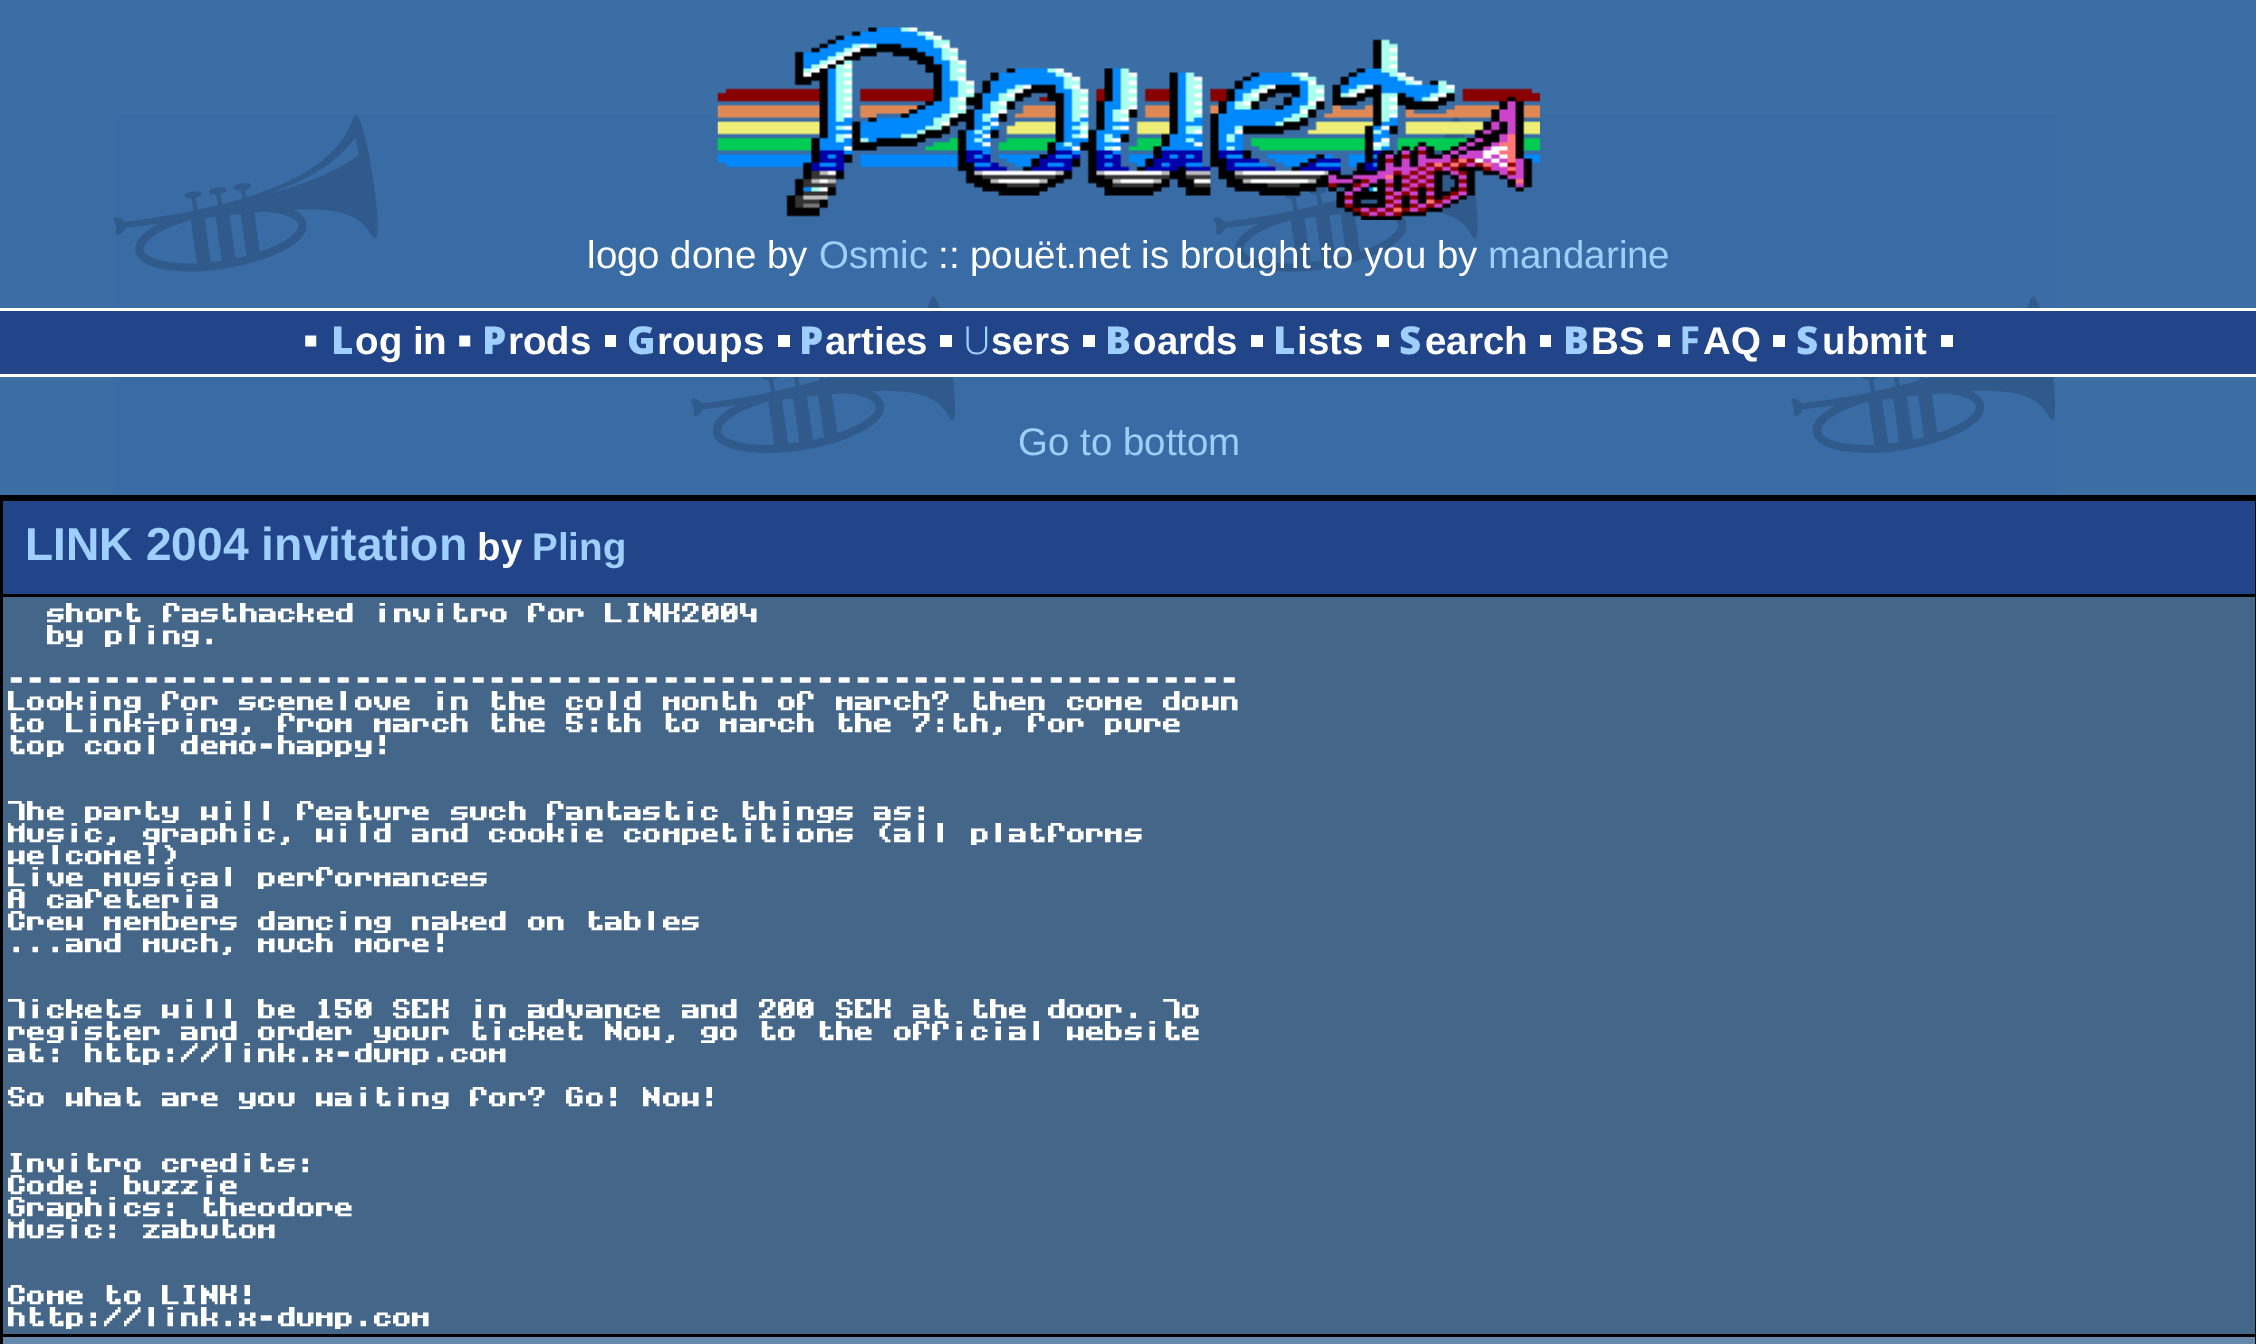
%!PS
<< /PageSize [2256 1344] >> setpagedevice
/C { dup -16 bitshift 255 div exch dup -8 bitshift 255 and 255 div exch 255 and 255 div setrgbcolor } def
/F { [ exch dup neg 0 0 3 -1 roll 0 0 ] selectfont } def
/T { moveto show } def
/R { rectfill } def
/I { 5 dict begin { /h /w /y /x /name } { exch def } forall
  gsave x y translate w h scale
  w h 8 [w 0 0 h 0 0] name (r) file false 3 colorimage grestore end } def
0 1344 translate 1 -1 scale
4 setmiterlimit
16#3A6EA5 C
0 0 2256 1344 R
(1.rgb) 113 115 1943 380 I
(2.rgb) 717 27 823 193 I
/LiberationSans-Regular 38.5 F
16#FFFFFF C
(logo done by) 587 268 T
16#9FCFFF C
(Osmic) 819 268 T
16#FFFFFF C
(:: pouët.net is brought to you by) 938 268 T
16#9FCFFF C
(mandarine) 1488 268 T
16#224488 C
0 311 2256 63 R
16#FFFFFF C
0 308 2256 3 R
0 374 2256 3 R
(3.rgb) 305 335 166 12 I
/NotoSans-Black 38.5 F
16#9FCFFF C
(L) 331 354 T
/LiberationSans-Bold 38.5 F
16#FFFFFF C
(og in) 355 354 T
16#FCFEFC C
605 335 11 12 R
/NotoSans-Black 38.5 F
16#9FCFFF C
(P) 482 354 T
/LiberationSans-Bold 38.5 F
16#FFFFFF C
(rods) 508 354 T
16#FCFEFC C
778 335 12 12 R
/NotoSans-Black 38.5 F
16#9FCFFF C
(G) 627 354 T
/LiberationSans-Bold 38.5 F
16#FFFFFF C
(roups) 657 354 T
16#FCFEFC C
940 335 12 12 R
/NotoSans-Black 38.5 F
16#9FCFFF C
(P) 799 354 T
/LiberationSans-Bold 38.5 F
16#FFFFFF C
(arties) 825 354 T
16#FCFEFC C
1083 335 12 12 R
/NotoSans-Light 38.5 F
16#9FCFFF C
(U) 963 354 T
/LiberationSans-Bold 38.5 F
16#FFFFFF C
(sers) 991 354 T
16#FCFEFC C
1251 335 12 12 R
/NotoSans-Black 38.5 F
16#9FCFFF C
(B) 1105 354 T
/LiberationSans-Bold 38.5 F
16#FFFFFF C
(oards) 1133 354 T
16#FCFEFC C
1377 335 12 12 R
/NotoSans-Black 38.5 F
16#9FCFFF C
(L) 1273 354 T
/LiberationSans-Bold 38.5 F
16#FFFFFF C
(ists) 1297 354 T
16#FCFEFC C
1540 335 11 12 R
/NotoSans-Black 38.5 F
16#9FCFFF C
(S) 1399 354 T
/LiberationSans-Bold 38.5 F
16#FFFFFF C
(earch) 1425 354 T
16#FCFEFC C
1658 335 12 12 R
/NotoSans-Black 38.5 F
16#9FCFFF C
(B) 1563 354 T
/LiberationSans-Bold 38.5 F
16#FFFFFF C
(BS) 1591 354 T
16#FCFEFC C
1773 335 12 12 R
/NotoSans-Bold 38.5 F
16#9FCFFF C
(F) 1679 354 T
/LiberationSans-Bold 38.5 F
16#FFFFFF C
(AQ) 1703 354 T
16#FCFEFC C
1941 335 12 12 R
/NotoSans-Black 38.5 F
16#9FCFFF C
(S) 1796 354 T
/LiberationSans-Bold 38.5 F
16#FFFFFF C
(ubmit) 1822 354 T
/LiberationSans-Regular 38.5 F
16#9FCFFF C
(Go to bottom) 1018 455 T
16#000000 C
0 495 2256 849 R
16#224488 C
3 501 2252 93 R
/LiberationSans-Bold 46.25 F
16#9FCFFF C
(LINK 2004 invitation) 25 560 T
/LiberationSans-Bold 38.5 F
16#FFFFFF C
(by) 477 560 T
16#9FCFFF C
(Pling) 532 560 T
16#446688 C
3 597 2252 737 R
/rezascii-Regular 22 F
16#FFFFFF C
(short fasthacked invitro for LINK2004) 47 625 T
(by pling.) 47 647 T
(----------------------------------------------------------------) 8 691 T
(Looking for scenelove in the cold month of march? then come down) 8 713 T
(to Link÷ping, from march the 5:th to march the 7:th, for pure) 8 735 T
(top cool demo-happy!) 8 757 T
(The party will feature such fantastic things as:) 8 823 T
(Music, graphic, wild and cookie competitions \(all platforms) 8 845 T
(welcome!\)) 8 867 T
(Live musical performances) 8 889 T
(A cafeteria) 8 911 T
(Crew members dancing naked on tables) 8 933 T
(...and much, much more!) 8 955 T
(Tickets will be 150 SEK in advance and 200 SEK at the door. To) 8 1021 T
(register and order your ticket Now, go to the official website) 8 1043 T
(at: http://link.x-dump.com) 8 1065 T
(So what are you waiting for? Go! Now!) 8 1109 T
(Invitro credits:) 8 1175 T
(Code: buzzie) 8 1197 T
(Graphics: theodore) 8 1219 T
(Music: zabutom) 8 1241 T
(Come to LINK!) 8 1307 T
(http://link.x-dump.com) 8 1329 T
16#6688AA C
3 1337 2252 7 R
showpage
